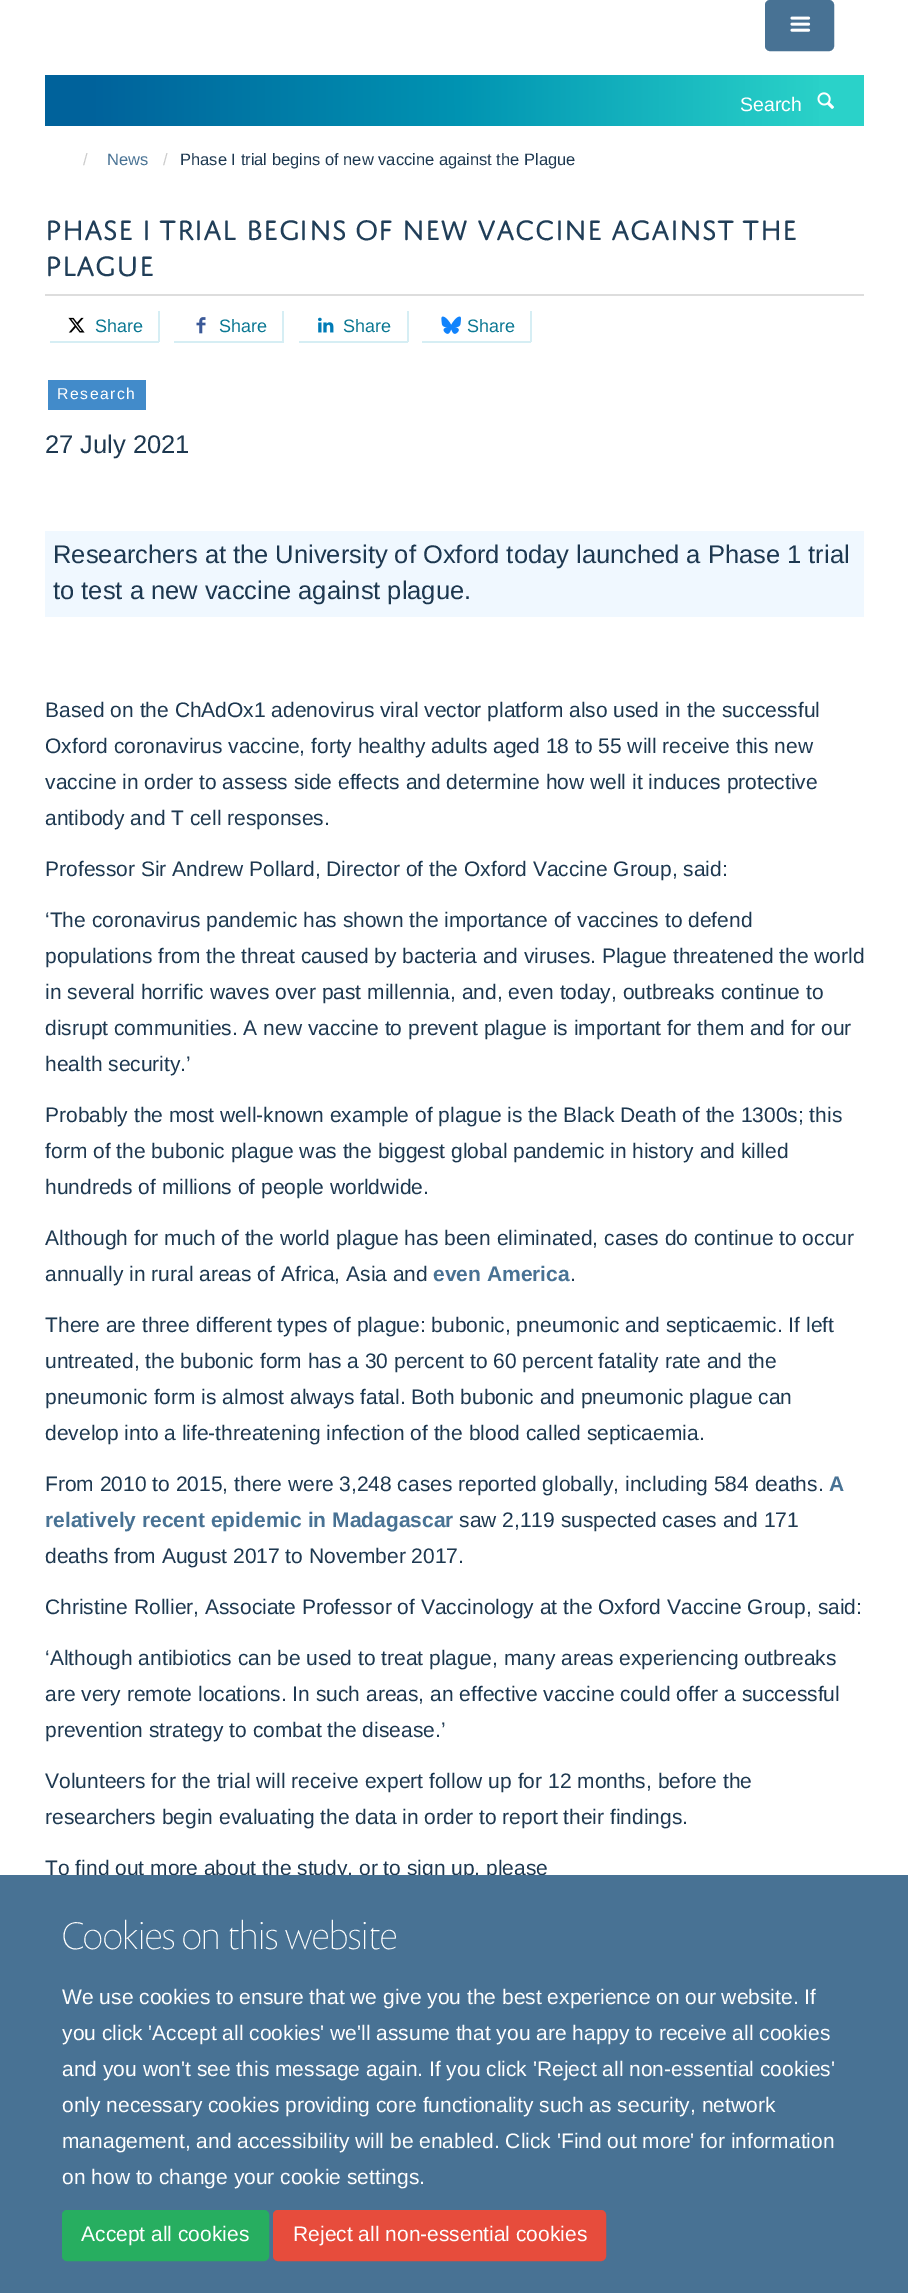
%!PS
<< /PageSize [908 2293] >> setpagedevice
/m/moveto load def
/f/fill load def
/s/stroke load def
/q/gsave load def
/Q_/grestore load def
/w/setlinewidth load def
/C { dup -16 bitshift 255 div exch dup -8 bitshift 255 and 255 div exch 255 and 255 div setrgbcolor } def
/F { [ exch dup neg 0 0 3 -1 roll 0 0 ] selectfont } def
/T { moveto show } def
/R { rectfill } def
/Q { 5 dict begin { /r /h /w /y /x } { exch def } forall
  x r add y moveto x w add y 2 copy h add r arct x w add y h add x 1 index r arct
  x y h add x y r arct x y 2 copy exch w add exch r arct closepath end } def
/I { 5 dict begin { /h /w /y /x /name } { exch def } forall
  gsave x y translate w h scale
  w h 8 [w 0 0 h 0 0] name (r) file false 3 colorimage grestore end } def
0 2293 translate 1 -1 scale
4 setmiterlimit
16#FFFFFF C
0 0 908 2293 R
16#487294 C
766 1 67 49 4 Q q f Q_
2 w
s
(1.rgb) 790 16 21 16 I
q 45 75 819 51 3 Q clip newpath
<< /ShadingType 2 /ColorSpace /DeviceRGB /Coords [45 101 864 100] /Extend [true true] /Function << /FunctionType 3 /Domain [0 1] /Functions [<< /FunctionType 2 /Domain [0 1] /C0 [0 .384 .608] /C1 [0 .384 .608] /N 1 >> << /FunctionType 2 /Domain [0 1] /C0 [0 .384 .608] /C1 [0 .576 .698] /N 1 >> << /FunctionType 2 /Domain [0 1] /C0 [0 .576 .698] /C1 [.165 .824 .788] /N 1 >> << /FunctionType 2 /Domain [0 1] /C0 [.165 .824 .788] /C1 [.165 .824 .788] /N 1 >>] /Bounds [.05 .5 .95] /Encode [0 1 0 1 0 1 0 1] >> >> shfill Q_
/LiberationSans-Regular 19.5 F
16#FFFFFF C
(Search) 740 111 T
(2.rgb) 817 92 17 17 I
/LiberationSans-Regular 16.5 F
16#CCCCCC C
(/) 83 165 T
16#487294 C
(News) 107 165 T
16#CCCCCC C
(/) 163 165 T
16#1D3850 C
(Phase I trial begins of new vaccine against the Plague) 180 165 T
16#DDDDDD C
45 294 819 2 R
/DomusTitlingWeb-Regular 30 F
16#203E58 C
(PHASE I TRIAL BEGINS OF NEW VACCINE AGAINST THE) 45 240 T
(PLAGUE) 45 276 T
16#D6EEF4 C
158 311 2 31 R
50 341 109 2 R
(3.rgb) 68 317 17 16 I
/LiberationSans-Regular 18 F
16#0B7893 C
(Share) 95 332 T
16#D6EEF4 C
282 311 2 31 R
174 341 110 2 R
(4.rgb) 196 317 10 17 I
16#0B7893 C
(Share) 219 332 T
16#D6EEF4 C
407 311 2 31 R
299 341 109 2 R
(5.rgb) 318 317 16 16 I
16#0B7893 C
(Share) 343 332 T
16#D6EEF4 C
530 311 2 31 R
422 341 109 2 R
(6.rgb) 441 316 20 18 I
16#0B7893 C
(Share) 467 332 T
16#428BCA C
48 380 98 30 R
/LiberationSans-Regular 15.75 F
16#FFFFFF C
57 399 m 1.5 0 (Research) ashow
/LiberationSans-Regular 25.5 F
16#1D3850 C
(27 July 2021) 45 453 T
16#F0F8FF C
45 531 819 86 R
16#1D3850 C
(Researchers at the University of Oxford today launched a Phase 1 trial) 53 563 T
(to test a new vaccine against plague.) 53 599 T
/LiberationSans-Regular 21 F
(Based on the ChAdOx1 adenovirus viral vector platform also used in the successful) 45 717 T
(Oxford coronavirus vaccine, forty healthy adults aged 18 to 55 will receive this new) 45 753 T
(vaccine in order to assess side effects and determine how well it induces protective) 45 789 T
(antibody and T cell responses.) 45 825 T
(Professor Sir Andrew Pollard, Director of the Oxford Vaccine Group, said:) 45 876 T
(‘The coronavirus pandemic has shown the importance of vaccines to defend) 45 927 T
(populations from the threat caused by bacteria and viruses. Plague threatened the world) 45 963 T
(in several horrific waves over past millennia, and, even today, outbreaks continue to) 45 999 T
(disrupt communities. A new vaccine to prevent plague is important for them and for our) 45 1035 T
(health security.’) 45 1071 T
(Probably the most well-known example of plague is the Black Death of the 1300s; this) 45 1122 T
(form of the bubonic plague was the biggest global pandemic in history and killed) 45 1158 T
(hundreds of millions of people worldwide.) 45 1194 T
(Although for much of the world plague has been eliminated, cases do continue to occur) 45 1245 T
(annually in rural areas of Africa, Asia and) 45 1281 T
/LiberationSans-Bold 21 F
16#487294 C
(even America) 433 1281 T
/LiberationSans-Regular 21 F
16#1D3850 C
(.) 570 1281 T
(There are three different types of plague: bubonic, pneumonic and septicaemic. If left) 45 1332 T
(untreated, the bubonic form has a 30 percent to 60 percent fatality rate and the) 45 1368 T
(pneumonic form is almost always fatal. Both bubonic and pneumonic plague can) 45 1404 T
(develop into a life-threatening infection of the blood called septicaemia.) 45 1440 T
(From 2010 to 2015, there were 3,248 cases reported globally, including 584 deaths.) 45 1491 T
/LiberationSans-Bold 21 F
16#487294 C
(A) 829 1491 T
(relatively recent epidemic in Madagascar) 45 1527 T
/LiberationSans-Regular 21 F
16#1D3850 C
(saw 2,119 suspected cases and 171) 459 1527 T
(deaths from August 2017 to November 2017.) 45 1563 T
(Christine Rollier, Associate Professor of Vaccinology at the Oxford Vaccine Group, said:) 45 1614 T
(‘Although antibiotics can be used to treat plague, many areas experiencing outbreaks) 45 1665 T
(are very remote locations. In such areas, an effective vaccine could offer a successful) 45 1701 T
(prevention strategy to combat the disease.’) 45 1737 T
(Volunteers for the trial will receive expert follow up for 12 months, before the) 45 1788 T
(researchers begin evaluating the data in order to report their findings.) 45 1824 T
(To find out more about the study, or to sign up, please) 45 1875 T
16#487294 C
0 1875 908 418 R
/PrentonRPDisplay-Thin 39 F
16#FFFFFF C
(Cookies on this website) 62 1949 T
/LiberationSans-Regular 21 F
(We use cookies to ensure that we give you the best experience on our website. If) 62 2004 T
(you click 'Accept all cookies' we'll assume that you are happy to receive all cookies) 62 2040 T
(and you won't see this message again. If you click 'Reject all non-essential cookies') 62 2076 T
(only necessary cookies providing core functionality such as security, network) 62 2112 T
(management, and accessibility will be enabled. Click 'Find out more' for information) 62 2148 T
(on how to change your cookie settings.) 62 2184 T
16#27AE60 C
63 2211 205 49 4 Q q f Q_
s
16#FFFFFF C
(Accept all cookies) 81 2241 T
16#E74C3C C
274 2211 331 49 4 Q q f Q_
s
16#FFFFFF C
(Reject all non-essential cookies) 293 2241 T
showpage
